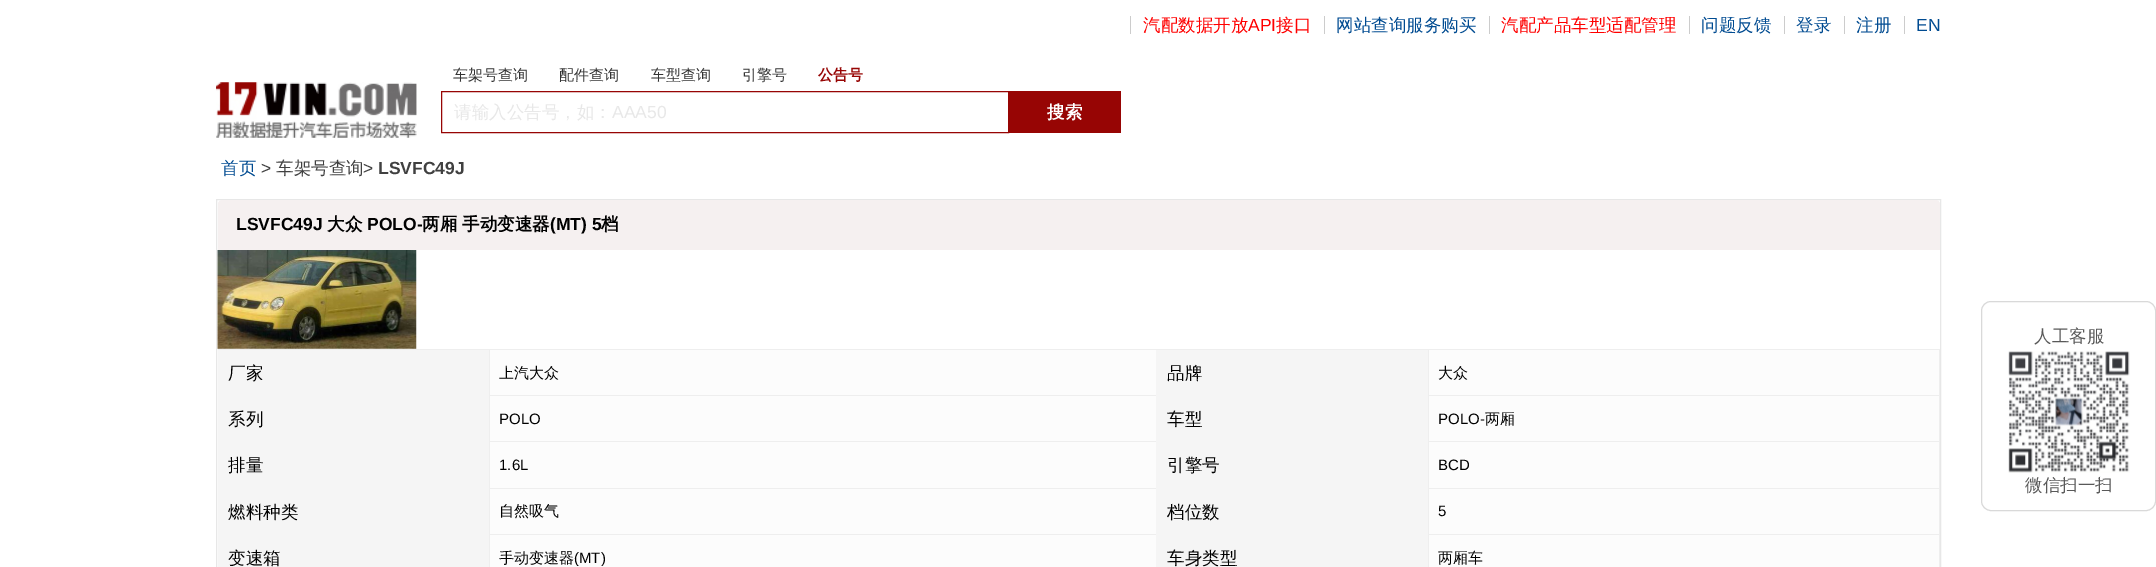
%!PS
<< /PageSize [2156 567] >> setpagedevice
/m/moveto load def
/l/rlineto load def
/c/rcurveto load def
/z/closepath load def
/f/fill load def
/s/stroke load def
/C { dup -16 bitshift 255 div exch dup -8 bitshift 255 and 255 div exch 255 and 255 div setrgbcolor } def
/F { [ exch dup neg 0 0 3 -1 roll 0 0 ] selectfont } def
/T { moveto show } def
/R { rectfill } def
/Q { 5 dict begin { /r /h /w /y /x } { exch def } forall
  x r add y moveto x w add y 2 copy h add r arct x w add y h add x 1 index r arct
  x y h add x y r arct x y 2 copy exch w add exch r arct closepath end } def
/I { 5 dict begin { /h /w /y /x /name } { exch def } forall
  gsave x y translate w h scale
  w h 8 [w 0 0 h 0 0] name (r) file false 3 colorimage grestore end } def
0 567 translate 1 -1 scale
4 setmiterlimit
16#FFFFFF C
0 0 2156 567 R
16#CCCCCC C
1130 16 1 18 R
/WenQuanYiZenHei-Medium 17.5 F
16#FF0000 C
(汽配数据开放) 1143 31 T
/LiberationSans-Regular 17.5 F
(API) 1248 31 T
/WenQuanYiZenHei-Medium 17.5 F
(接口) 1276 31 T
16#CCCCCC C
1324 16 1 18 R
16#004B91 C
(网站查询服务购买) 1336 31 T
16#CCCCCC C
1489 16 1 18 R
16#FF0000 C
(汽配产品车型适配管理) 1501 31 T
16#CCCCCC C
1689 16 1 18 R
16#004B91 C
(问题反馈) 1701 31 T
16#CCCCCC C
1784 16 1 18 R
16#004B91 C
(登录) 1796 31 T
16#CCCCCC C
1844 16 1 18 R
16#004B91 C
(注册) 1856 31 T
16#CCCCCC C
1904 16 1 18 R
/LiberationSans-Regular 17.5 F
16#004B91 C
(EN) 1916 31 T
(1.rgb) 216 82 201 56 I
(2.rgb) 216 82 201 56 I
/WenQuanYiZenHei-Medium 15 F
16#333333 C
(车架号查询) 453 80 T
(配件查询) 559 80 T
(车型查询) 651 80 T
(引擎号) 742 80 T
/WenQuanYiZenHei-Bold 15 F
16#970504 C
(公告号) 818 80 T
441.5 91.5 567 41 rectstroke
/WenQuanYiZenHei-Medium 17.5 F
16#E8E8E8 C
(请输入公告号，如：) 454 118 T
/LiberationSans-Regular 17.5 F
(AAA50) 612 118 T
16#970504 C
1009 91 112 42 R
/WenQuanYiZenHei-Bold 17.5 F
16#FFFFFF C
(搜索) 1047 118 T
/WenQuanYiZenHei-Medium 17.5 F
16#004B91 C
(首页) 221 174 T
/LiberationSans-Regular 17.5 F
16#404040 C
(>) 261 174 T
/WenQuanYiZenHei-Medium 17.5 F
(车架号查询) 276 174 T
/LiberationSans-Regular 17.5 F
(>) 363 174 T
/LiberationSans-Bold 17.5 F
(LSVFC49J) 378 174 T
16#E7E7E7 C
216.5 199.5 1724 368 rectstroke
16#F5F0F0 C
222 200 m 1714 0 l 2 0 4 2 4 4 c 0 46 l -1722 0 l 0 -46 l 0 -2 2 -4 4 -4 c z f
16#000000 C
(LSVFC49J) 236 230 T
/WenQuanYiZenHei-Bold 17.5 F
(大众) 327 230 T
/LiberationSans-Bold 17.5 F
(POLO-) 367 230 T
/WenQuanYiZenHei-Bold 17.5 F
(两厢) 422 230 T
(手动变速器) 462 230 T
/LiberationSans-Bold 17.5 F
(\(MT\) 5) 550 230 T
/WenQuanYiZenHei-Bold 17.5 F
(档) 601 230 T
(3.rgb) 217 250 200 99 I
16#EEEEEE C
218 349 1722 1 R
1939 349 1 218 R
16#F5F5F5 C
218 350 271 217 R
/WenQuanYiZenHei-Medium 17.5 F
16#000000 C
(厂家) 228 379 T
16#FCFCFC C
490 350 666 45 R
/WenQuanYiZenHei-Medium 15 F
16#000000 C
(上汽大众) 499 378 T
16#EEEEEE C
489 395 669 1 R
16#FCFCFC C
490 396 666 92 R
16#EEEEEE C
489 441 669 1 R
489 488 669 1 R
489 534 669 1 R
16#F5F5F5 C
1156 350 272 217 R
/WenQuanYiZenHei-Medium 17.5 F
16#000000 C
(品牌) 1167 379 T
16#FCFCFC C
1429 350 510 45 R
/WenQuanYiZenHei-Medium 15 F
16#000000 C
(大众) 1438 378 T
/WenQuanYiZenHei-Medium 17.5 F
(系列) 228 425 T
16#EEEEEE C
489 534 1 33 R
489 488 1 47 R
489 441 1 48 R
489 349 1 94 R
/LiberationSans-Regular 15 F
16#000000 C
(POLO) 499 424 T
/WenQuanYiZenHei-Medium 17.5 F
(车型) 1167 425 T
16#FCFCFC C
1429 396 510 92 R
16#EEEEEE C
1428 395 512 1 R
1428 441 512 1 R
1428 488 512 1 R
1428 534 512 1 R
1428 534 1 33 R
1428 488 1 47 R
1428 441 1 48 R
1428 349 1 94 R
/LiberationSans-Regular 15 F
16#000000 C
(POLO-) 1438 424 T
/WenQuanYiZenHei-Medium 15 F
(两厢) 1485 424 T
/WenQuanYiZenHei-Medium 17.5 F
(排量) 228 471 T
/LiberationSans-Regular 15 F
(1.6L) 499 470 T
/WenQuanYiZenHei-Medium 17.5 F
(引擎号) 1167 471 T
/LiberationSans-Regular 15 F
(BCD) 1438 470 T
/WenQuanYiZenHei-Medium 17.5 F
(燃料种类) 228 518 T
16#FCFCFC C
490 489 666 45 R
/WenQuanYiZenHei-Medium 15 F
16#000000 C
(自然吸气) 499 516 T
/WenQuanYiZenHei-Medium 17.5 F
(档位数) 1167 518 T
16#FCFCFC C
1429 489 510 45 R
/LiberationSans-Regular 15 F
16#000000 C
(5) 1438 516 T
/WenQuanYiZenHei-Medium 17.5 F
(变速箱) 228 564 T
16#FCFCFC C
490 535 666 32 R
/WenQuanYiZenHei-Medium 15 F
16#000000 C
(手动变速器) 499 563 T
/LiberationSans-Regular 15 F
(\(MT\)) 574 563 T
/WenQuanYiZenHei-Medium 17.5 F
(车身类型) 1167 564 T
16#FCFCFC C
1429 535 510 32 R
/WenQuanYiZenHei-Medium 15 F
16#000000 C
(两厢车) 1438 563 T
16#D9D9D9 C
1981.5 301.5 174 209 9.5 Q s
/WenQuanYiZenHei-Medium 17.5 F
16#595959 C
(人工客服) 2034 342 T
(4.rgb) 2008 351 122 122 I
(微信扫一扫) 2025 491 T
showpage
